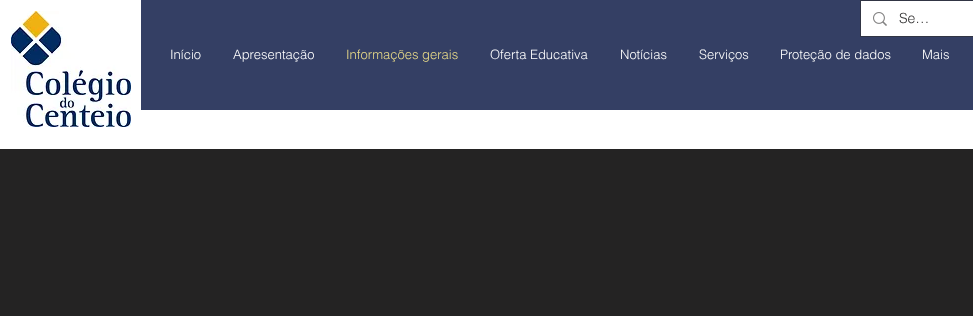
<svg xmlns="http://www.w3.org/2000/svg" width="973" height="316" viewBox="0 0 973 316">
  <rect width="100%" height="100%" fill="rgb(255,255,255)"/>
  <image x="11" y="11" width="120" height="116" href="pic1.png"/>
  <rect x="141" y="0" width="832" height="110" fill="rgb(52,63,100)"/>
  <rect x="860.5" y="0.5" width="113" height="36" fill="none" stroke="rgb(49,53,68)"/>
  <rect x="861" y="1" width="112" height="35" fill="rgb(255,255,255)"/>
  <image x="873" y="12" width="14" height="14" href="pic2.png"/>
  <text x="899" y="23" font-family="helvetica" font-size="14" font-weight="300" fill="rgb(47,46,46)">Se…</text>
  <g font-family="helvetica" font-size="13" font-weight="300" fill="rgb(255,255,255)">
    <text x="170" y="59">Início</text>
    <text x="233" y="59">Apresentação</text>
  </g>
  <text x="346" y="59" font-family="helvetica" font-size="13" font-weight="300" fill="rgb(233,219,137)">Informações gerais</text>
  <g font-family="helvetica" font-size="13" font-weight="300" fill="rgb(255,255,255)">
    <text x="490" y="59">Oferta Educativa</text>
    <text x="620" y="59">Notícias</text>
    <text x="699" y="59">Serviços</text>
    <text x="780" y="59">Proteção de dados</text>
    <text x="922" y="59">Mais</text>
  </g>
  <rect x="0" y="149" width="973" height="167" fill="rgb(36,35,35)"/>
</svg>
